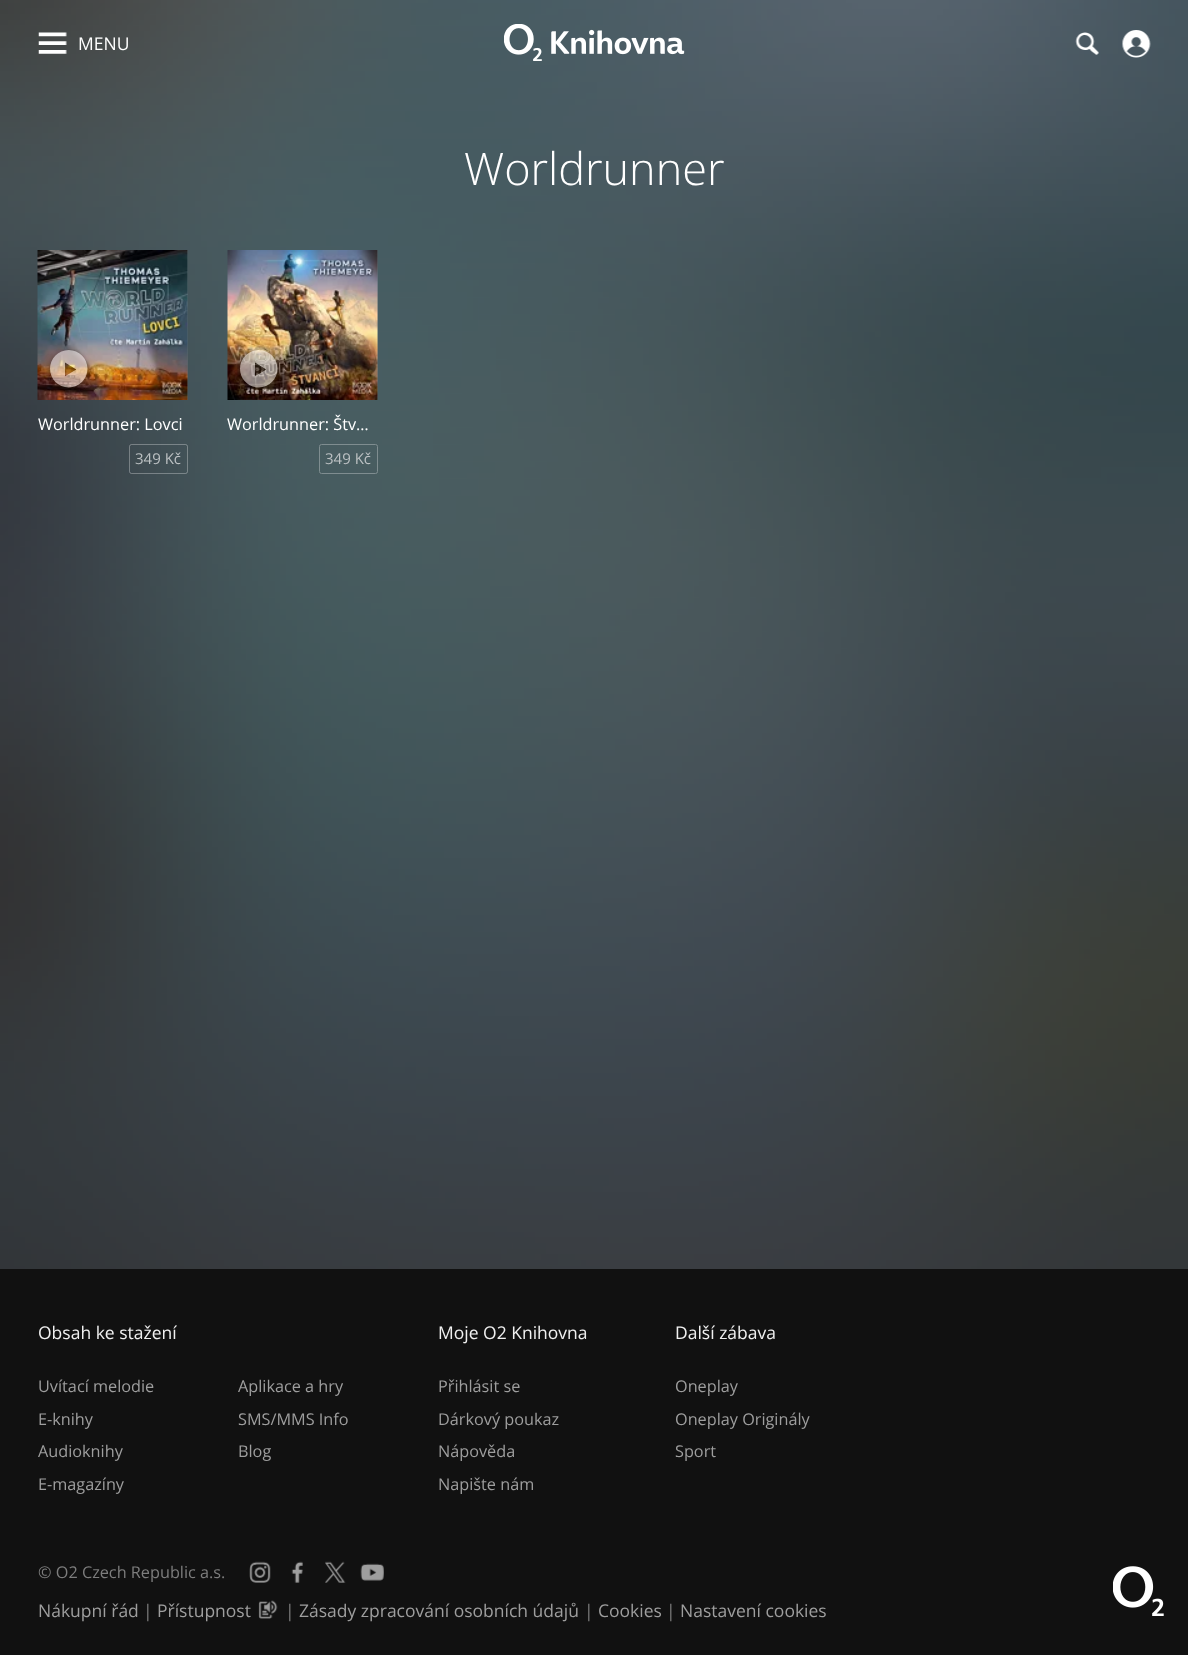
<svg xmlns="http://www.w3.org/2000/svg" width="1188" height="1655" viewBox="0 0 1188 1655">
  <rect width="100%" height="100%" fill="rgb(255,255,255)"/>
  <image x="0" y="0" width="1188" height="1269" href="pic1.png"/>
  <image x="38" y="32" width="29" height="22" href="pic2.png"/>
  <text x="78" y="50" font-family="Open Sans" font-size="17.5" fill="rgb(255,255,255)">MENU</text>
  <image x="504" y="24" width="181" height="37" href="pic3.png"/>
  <image x="1075" y="32" width="24" height="23" href="pic4.png"/>
  <image x="1122" y="30" width="29" height="28" href="pic5.png"/>
  <text x="464" y="185" font-family="Open Sans" font-size="45" font-weight="300" fill="rgb(255,255,255)">Worldrunner</text>
  <rect x="187" y="250" width="1" height="150" fill="rgba(255,255,255,0.1)"/>
  <image x="37" y="250" width="151" height="150" href="pic7.png"/>
  <image x="46" y="349" width="46" height="45" href="pic6.png"/>
  <text x="38" y="430" font-family="Open Sans" font-size="16.25" fill="rgb(255,255,255)">Worldrunner: Lovci</text>
  <rect x="129.5" y="444.5" width="58" height="29" rx="2" fill="none" stroke="rgba(255,255,255,0.3)"/>
  <text x="135" y="464" font-family="Open Sans" font-size="15" fill="rgb(188,193,195)">349 Kč</text>
  <rect x="377" y="250" width="1" height="150" fill="rgba(255,255,255,0.1)"/>
  <image x="227" y="250" width="151" height="150" href="pic9.png"/>
  <image x="237" y="348" width="44" height="46" href="pic8.png"/>
  <text x="227" y="430" font-family="Open Sans" font-size="16.25" fill="rgb(255,255,255)">Worldrunner: Štv…</text>
  <rect x="319.5" y="444.5" width="58" height="29" rx="2" fill="none" stroke="rgb(127,141,144)"/>
  <text x="325" y="464" font-family="Open Sans" font-size="15" fill="rgb(188,193,195)">349 Kč</text>
  <rect x="0" y="1269" width="1188" height="386" fill="rgb(17,17,17)"/>
  <text x="38" y="1339" font-family="Open Sans" font-size="17.5" fill="rgb(240,240,240)">Obsah ke stažení</text>
  <g font-family="Open Sans" font-size="16.25" fill="rgb(158,158,158)">
    <text x="38" y="1392">Uvítací melodie</text>
    <text x="238" y="1392">Aplikace a hry</text>
    <text x="38" y="1425">E-knihy</text>
    <text x="238" y="1425">SMS/MMS Info</text>
    <text x="38" y="1457">Audioknihy</text>
    <text x="238" y="1457">Blog</text>
    <text x="38" y="1490">E-magazíny</text>
  </g>
  <text x="438" y="1339" font-family="Open Sans" font-size="17.5" fill="rgb(240,240,240)">Moje O2 Knihovna</text>
  <g font-family="Open Sans" font-size="16.25" fill="rgb(158,158,158)">
    <text x="438" y="1392">Přihlásit se</text>
    <text>
      <tspan x="438" y="1425">Dárkový poukaz</tspan>
      <tspan x="438" y="1457">Nápověda</tspan>
    </text>
    <text x="438" y="1490">Napište nám</text>
  </g>
  <text x="675" y="1339" font-family="Open Sans" font-size="17.5" fill="rgb(240,240,240)">Další zábava</text>
  <g font-family="Open Sans" font-size="16.25" fill="rgb(158,158,158)">
    <text x="675" y="1392">Oneplay</text>
    <text>
      <tspan x="675" y="1425">Oneplay Originály</tspan>
      <tspan x="675" y="1457">Sport</tspan>
    </text>
  </g>
  <text x="38" y="1578" font-family="Open Sans" font-size="16.25" fill="rgb(125,125,125)">© O2 Czech Republic a.s.</text>
  <image x="249" y="1561" width="22" height="22" href="pic10.png"/>
  <image x="291" y="1561" width="12" height="22" href="pic11.png"/>
  <image x="325" y="1561" width="21" height="22" href="pic12.png"/>
  <image x="360" y="1563" width="24" height="18" href="pic13.png"/>
  <image x="1113" y="1566" width="51" height="50" href="pic14.png"/>
  <text x="38" y="1617" font-family="Open Sans" font-size="17.5" fill="rgb(158,158,158)">Nákupní řád</text>
  <text x="143" y="1617" font-family="Open Sans" font-size="17.5" fill="rgb(125,125,125)">|</text>
  <text x="157" y="1617" font-family="Open Sans" font-size="17.5" fill="rgb(158,158,158)">Přístupnost</text>
  <image x="258" y="1600" width="20" height="19" href="pic15.png"/>
  <text x="285" y="1617" font-family="Open Sans" font-size="17.5" fill="rgb(125,125,125)">|</text>
  <text x="299" y="1617" font-family="Open Sans" font-size="17.5" fill="rgb(158,158,158)">Zásady zpracování osobních údajů</text>
  <text x="584" y="1617" font-family="Open Sans" font-size="17.5" fill="rgb(125,125,125)">|</text>
  <text x="598" y="1617" font-family="Open Sans" font-size="17.5" fill="rgb(158,158,158)">Cookies</text>
  <text x="666" y="1617" font-family="Open Sans" font-size="17.5" fill="rgb(125,125,125)">|</text>
  <text x="680" y="1617" font-family="Open Sans" font-size="17.5" fill="rgb(158,158,158)">Nastavení cookies</text>
</svg>
